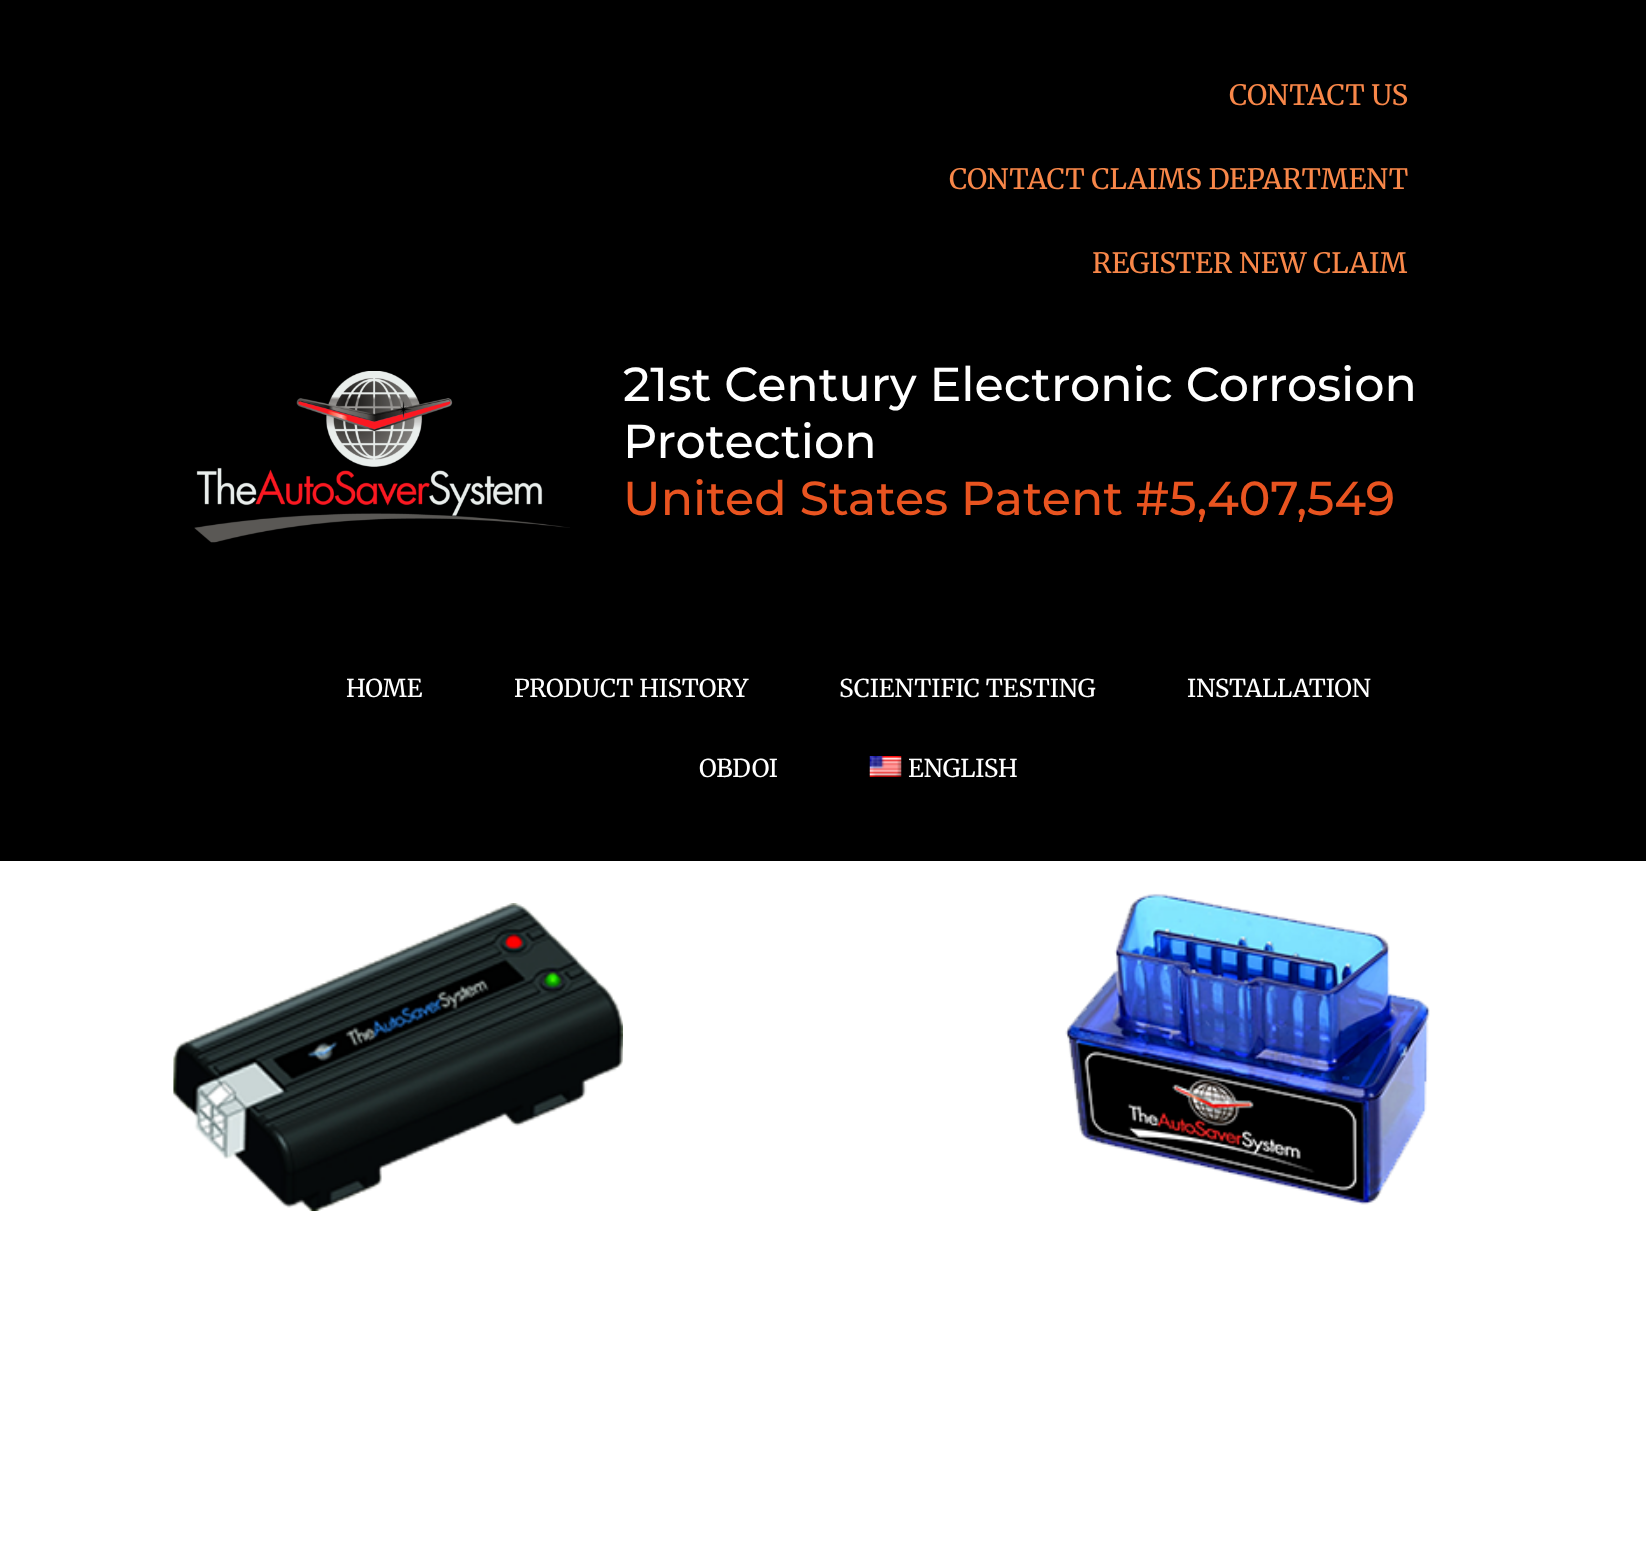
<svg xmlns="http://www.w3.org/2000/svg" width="1646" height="1563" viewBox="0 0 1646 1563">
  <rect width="100%" height="100%" fill="rgb(255,255,255)"/>
  <rect x="0" y="0" width="1646" height="861" fill="rgb(0,0,0)"/>
  <image x="194" y="371" width="376" height="172" href="pic1.png"/>
  <g font-family="Merriweather" font-size="28" fill="rgb(248,135,73)">
    <text x="1229" y="105">CONTACT US</text>
    <text x="949" y="189">CONTACT CLAIMS DEPARTMENT</text>
    <text x="1092" y="273">REGISTER NEW CLAIM</text>
  </g>
  <g font-family="Montserrat" font-size="47.6" font-weight="500" fill="rgb(255,255,255)">
    <text>
      <tspan x="623" y="401">21st Century Electronic Corrosion</tspan>
      <tspan x="623" y="458">Protection</tspan>
    </text>
  </g>
  <text x="623" y="515" font-family="Montserrat" font-size="47.6" font-weight="500" fill="rgb(233,84,32)">United States Patent #5,407,549</text>
  <g font-family="Merriweather" font-size="24.5" fill="rgb(255,255,255)">
    <text x="346" y="697">HOME</text>
    <text x="514" y="697">PRODUCT HISTORY</text>
    <text x="839" y="697">SCIENTIFIC TESTING</text>
    <text x="1187" y="697">INSTALLATION</text>
    <text x="699" y="777">OBDOI</text>
  </g>
  <image x="869" y="756" width="33" height="21" href="pic2.png"/>
  <text x="908" y="777" font-family="Merriweather" font-size="24.5" fill="rgb(255,255,255)">ENGLISH</text>
  <image x="173" y="903" width="450" height="308" href="pic3.png"/>
  <image x="1065" y="893" width="365" height="312" href="pic4.png"/>
</svg>
